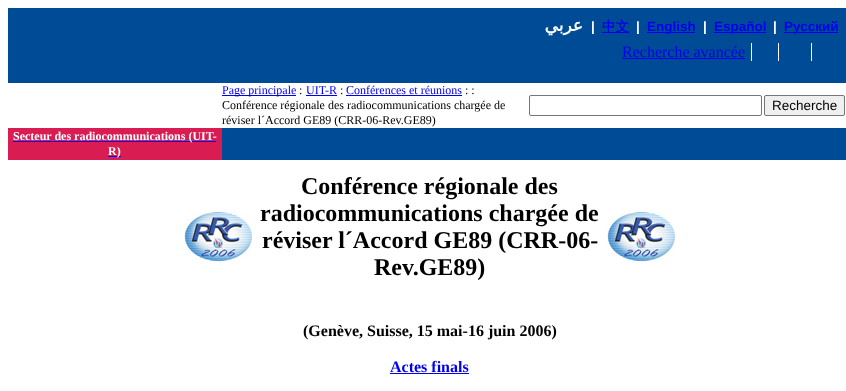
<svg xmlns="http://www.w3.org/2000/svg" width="846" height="391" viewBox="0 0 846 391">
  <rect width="100%" height="100%" fill="rgb(255,255,255)"/>
  <rect x="8" y="8" width="838" height="75" fill="rgb(0,75,150)"/>
  <text x="583" y="31" font-family="DejaVu Sans" font-size="17" font-weight="bold" direction="rtl" fill="rgb(255,255,255)">عربي</text>
  <text x="591" y="31" font-family="Liberation Sans" font-size="13.5" font-weight="bold" fill="rgb(255,255,255)">|</text>
  <rect x="602" y="32" width="27" height="1" fill="rgb(0,0,238)"/>
  <text x="602" y="31" font-family="WenQuanYi Zen Hei" font-size="13.5" font-weight="bold" fill="rgb(0,0,238)">中文</text>
  <text x="636" y="31" font-family="Liberation Sans" font-size="13.5" font-weight="bold" fill="rgb(255,255,255)">|</text>
  <rect x="647" y="32" width="48" height="1" fill="rgb(0,0,238)"/>
  <text x="647" y="31" font-family="Liberation Sans" font-size="13.5" font-weight="bold" fill="rgb(0,0,238)">English</text>
  <text x="703" y="31" font-family="Liberation Sans" font-size="13.5" font-weight="bold" fill="rgb(255,255,255)">|</text>
  <rect x="714" y="32" width="52" height="1" fill="rgb(0,0,238)"/>
  <text x="714" y="31" font-family="Liberation Sans" font-size="13.5" font-weight="bold" fill="rgb(0,0,238)">Español</text>
  <text x="773" y="31" font-family="Liberation Sans" font-size="13.5" font-weight="bold" fill="rgb(255,255,255)">|</text>
  <rect x="784" y="32" width="54" height="1" fill="rgb(0,0,238)"/>
  <text x="784" y="31" font-family="Liberation Sans" font-size="13.5" font-weight="bold" fill="rgb(0,0,238)">Русский</text>
  <rect x="751" y="43" width="1" height="18" fill="rgb(255,255,255)"/>
  <text x="622" y="57" font-family="Liberation Serif" font-size="16" fill="rgb(0,0,238)">Recherche avancée</text>
  <rect x="622" y="58" width="123" height="1" fill="rgb(0,0,238)"/>
  <rect x="778" y="43" width="1" height="18" fill="rgb(255,255,255)"/>
  <rect x="811" y="43" width="1" height="18" fill="rgb(255,255,255)"/>
  <rect x="222" y="95" width="74" height="1" fill="rgb(0,0,238)"/>
  <text x="222" y="94" font-family="Liberation Serif" font-size="12" fill="rgb(0,0,238)">Page principale</text>
  <text x="299" y="94" font-family="Liberation Serif" font-size="12" fill="rgb(0,0,0)">:</text>
  <text x="306" y="94" font-family="Liberation Serif" font-size="12" fill="rgb(0,0,238)">UIT-R</text>
  <rect x="306" y="95" width="31" height="1" fill="rgb(0,0,238)"/>
  <text x="340" y="94" font-family="Liberation Serif" font-size="12" fill="rgb(0,0,0)">:</text>
  <text x="346" y="94" font-family="Liberation Serif" font-size="12" fill="rgb(0,0,238)">Conférences et réunions</text>
  <rect x="346" y="95" width="116" height="1" fill="rgb(0,0,238)"/>
  <g font-family="Liberation Serif" font-size="12" fill="rgb(0,0,0)">
    <text x="465" y="94">: :</text>
    <text>
      <tspan x="222" y="109">Conférence régionale des radiocommunications chargée de</tspan>
      <tspan x="222" y="124">réviser l´Accord GE89 (CRR-06-Rev.GE89)</tspan>
    </text>
  </g>
  <rect x="529.5" y="95.5" width="232" height="20" rx="1.5" fill="none" stroke="rgb(118,118,118)"/>
  <rect x="764.5" y="95.5" width="80" height="20" rx="1.5" fill="rgb(239,239,239)" stroke="rgb(118,118,118)"/>
  <text x="772" y="110" font-family="Liberation Sans" font-size="13.5" fill="rgb(0,0,0)">Recherche</text>
  <rect x="8" y="128" width="214" height="32" fill="rgb(217,29,82)"/>
  <rect x="13" y="141" width="203" height="1" fill="rgb(0,0,238)"/>
  <text x="13" y="140" font-family="Liberation Serif" font-size="12" font-weight="bold" fill="rgb(255,255,255)">Secteur des radiocommunications (UIT-</text>
  <rect x="108" y="156" width="13" height="1" fill="rgb(0,0,238)"/>
  <text x="108" y="155" font-family="Liberation Serif" font-size="12" font-weight="bold" fill="rgb(255,255,255)">R)</text>
  <rect x="222" y="128" width="624" height="32" fill="rgb(0,75,150)"/>
  <image x="184" y="212" width="68" height="50" href="pic1.png"/>
  <g font-family="Liberation Serif" font-size="24" font-weight="bold" fill="rgb(0,0,0)">
    <text x="301" y="194">Conférence régionale des</text>
    <text x="260" y="221">radiocommunications chargée de</text>
    <text x="262" y="248">réviser l´Accord GE89 (CRR-06-</text>
    <text x="374" y="275">Rev.GE89)</text>
  </g>
  <image x="607" y="212" width="68" height="50" href="pic1.png"/>
  <text x="303" y="336" font-family="Liberation Serif" font-size="16" font-weight="bold" fill="rgb(0,0,0)">(Genève, Suisse, 15 mai-16 juin 2006)</text>
  <text x="390" y="372" font-family="Liberation Serif" font-size="16" font-weight="bold" fill="rgb(0,0,238)">Actes finals</text>
  <rect x="390" y="373" width="79" height="1" fill="rgb(0,0,238)"/>
</svg>
